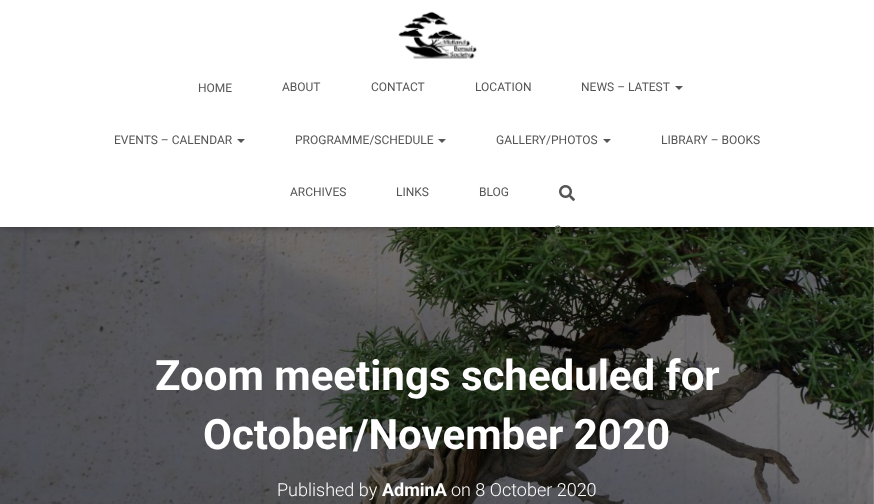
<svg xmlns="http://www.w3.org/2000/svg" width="874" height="504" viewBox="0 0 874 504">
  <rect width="100%" height="100%" fill="rgb(255,255,255)"/>
  <image x="0" y="227" width="874" height="277" href="pic3.png"/>
  <rect x="2" y="6" width="870" height="223" fill="rgba(0,0,0,0.1)" filter="blur(2.5px)"/>
  <rect x="0" y="1" width="874" height="227" fill="rgba(0,0,0,0.12)" filter="blur(5px)"/>
  <rect x="6" y="7" width="862" height="215" fill="rgba(0,0,0,0.42)" filter="blur(5px)"/>
  <rect x="0" y="0" width="874" height="227" fill="rgb(255,255,255)"/>
  <image x="398" y="11" width="79" height="48" href="pic1.png"/>
  <g font-family="Roboto" font-size="12" fill="rgb(85,85,85)">
    <text x="198" y="92">HOME</text>
    <text x="282" y="91">ABOUT</text>
    <text x="371" y="91">CONTACT</text>
    <text x="475" y="91">LOCATION</text>
    <text x="581" y="91">NEWS – LATEST</text>
  </g>
  <path d="M675 86H683L679 90Z" fill="rgb(85,85,85)"/>
  <text x="114" y="144" font-family="Roboto" font-size="12" fill="rgb(85,85,85)">EVENTS – CALENDAR</text>
  <path d="M237 139H245L241 143Z" fill="rgb(85,85,85)"/>
  <text x="295" y="144" font-family="Roboto" font-size="12" fill="rgb(85,85,85)">PROGRAMME/SCHEDULE</text>
  <path d="M438 139H446L442 143Z" fill="rgb(85,85,85)"/>
  <text x="496" y="144" font-family="Roboto" font-size="12" fill="rgb(85,85,85)">GALLERY/PHOTOS</text>
  <path d="M603 139H611L607 143Z" fill="rgb(85,85,85)"/>
  <g font-family="Roboto" font-size="12" fill="rgb(85,85,85)">
    <text x="661" y="144">LIBRARY – BOOKS</text>
    <text x="290" y="196">ARCHIVES</text>
    <text x="396" y="196">LINKS</text>
    <text x="479" y="196">BLOG</text>
  </g>
  <image x="559" y="185" width="16" height="16" href="pic2.png"/>
  <text x="554" y="233" font-family="Roboto" font-size="14" fill="rgb(90,100,81)">a</text>
  <text x="554" y="293" font-family="Roboto" font-size="14" fill="rgb(36,40,33)">h</text>
  <g font-family="Roboto" font-size="42" font-weight="bold" fill="rgb(255,255,255)">
    <text x="155" y="390">Zoom meetings scheduled for</text>
    <text x="203" y="449">October/November 2020</text>
  </g>
  <text x="277" y="496" font-family="Roboto" font-size="18" font-weight="300" fill="rgb(255,255,255)">Published by</text>
  <text x="382" y="496" font-family="Roboto" font-size="18" font-weight="bold" fill="rgb(255,255,255)">AdminA</text>
  <text x="451" y="496" font-family="Roboto" font-size="18" font-weight="300" fill="rgb(255,255,255)">on 8 October 2020</text>
</svg>
